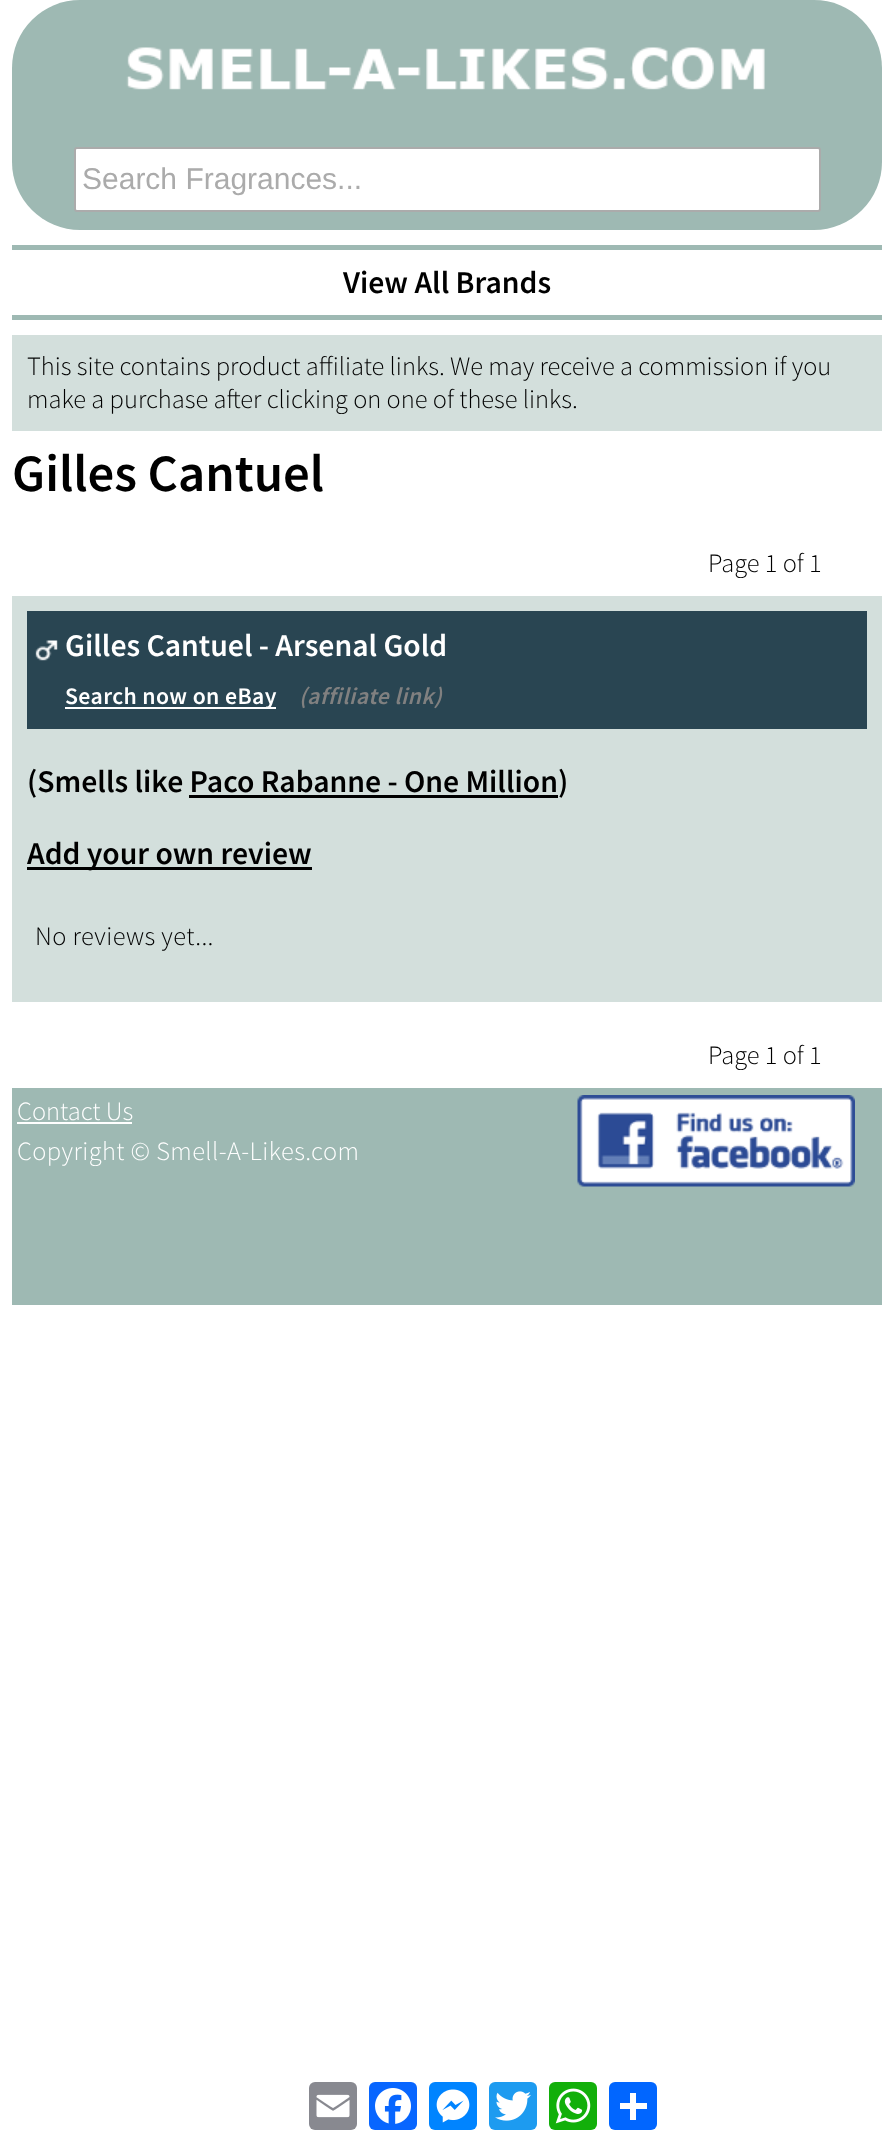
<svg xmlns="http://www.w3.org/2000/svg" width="893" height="2142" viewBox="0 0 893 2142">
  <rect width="100%" height="100%" fill="rgb(255,255,255)"/>
  <rect x="12" y="0" width="870" height="230" rx="68" fill="rgb(158,185,179)"/>
  <image x="126" y="47" width="639" height="43" href="pic1.png"/>
  <rect x="75" y="148" width="745" height="63" rx="2" fill="rgb(255,255,255)" stroke="rgb(171,171,171)" stroke-width="2"/>
  <text x="82" y="189" font-family="Liberation Sans" font-size="30" fill="rgb(171,171,171)">Search Fragrances...</text>
  <rect x="12" y="245" width="870" height="5" fill="rgb(158,185,179)"/>
  <rect x="12" y="315" width="870" height="5" fill="rgb(158,185,179)"/>
  <text x="343" y="293" font-family="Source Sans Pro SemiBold" font-size="31.7" font-weight="600" fill="rgb(0,0,0)">View All Brands</text>
  <rect x="12" y="335" width="870" height="96" fill="rgb(211,223,220)"/>
  <g font-family="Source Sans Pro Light" font-size="26.4" font-weight="300" fill="rgb(0,0,0)">
    <text>
      <tspan x="27" y="375">This site contains product affiliate links. We may receive a commission if you</tspan>
      <tspan x="27" y="408">make a purchase after clicking on one of these links.</tspan>
    </text>
  </g>
  <text x="12" y="491" font-family="Source Sans Pro SemiBold" font-size="52.75" font-weight="600" fill="rgb(0,0,0)">Gilles Cantuel</text>
  <text x="708" y="572" font-family="Source Sans Pro Light" font-size="26.4" font-weight="300" fill="rgb(0,0,0)">Page 1 of 1</text>
  <rect x="12" y="596" width="870" height="406" fill="rgb(211,223,220)"/>
  <rect x="27" y="611" width="840" height="118" fill="rgb(41,69,82)"/>
  <image x="35" y="640" width="23" height="21" href="pic2.png"/>
  <text x="65" y="656" font-family="Source Sans Pro SemiBold" font-size="31.7" font-weight="600" fill="rgb(255,255,255)">Gilles Cantuel - Arsenal Gold</text>
  <rect x="65" y="707" width="211" height="2" fill="rgb(255,255,255)"/>
  <text x="65" y="704" font-family="Source Sans Pro SemiBold" font-size="23.75" font-weight="600" letter-spacing="0.4" fill="rgb(255,255,255)">Search now on eBay</text>
  <text x="299" y="704" font-family="Source Sans Pro SemiBold" font-size="23.75" font-weight="600" font-style="italic" letter-spacing="0.4" fill="rgb(128,128,128)">(affiliate link)</text>
  <text x="27" y="792" font-family="Source Sans Pro SemiBold" font-size="31.7" font-weight="600" fill="rgb(0,0,0)">(Smells like Paco Rabanne - One Million)</text>
  <rect x="189" y="795" width="369" height="3" fill="rgb(0,0,0)"/>
  <rect x="27" y="867" width="285" height="3" fill="rgb(0,0,0)"/>
  <text x="27" y="864" font-family="Source Sans Pro SemiBold" font-size="31.7" font-weight="600" fill="rgb(0,0,0)">Add your own review</text>
  <text x="35" y="945" font-family="Source Sans Pro Light" font-size="26.4" font-weight="300" letter-spacing="0.4" fill="rgb(0,0,0)">No reviews yet...</text>
  <text x="708" y="1064" font-family="Source Sans Pro Light" font-size="26.4" font-weight="300" fill="rgb(0,0,0)">Page 1 of 1</text>
  <rect x="12" y="1088" width="870" height="217" fill="rgb(158,185,179)"/>
  <text x="17" y="1120" font-family="Source Sans Pro Light" font-size="26.4" font-weight="300" fill="rgb(255,255,255)">Contact Us</text>
  <rect x="17" y="1122" width="115" height="2" fill="rgb(255,255,255)"/>
  <image x="577" y="1095" width="278" height="92" href="pic3.png"/>
  <text x="17" y="1160" font-family="Source Sans Pro Light" font-size="26.4" font-weight="300" letter-spacing="0.4" fill="rgb(255,255,255)">Copyright © Smell-A-Likes.com</text>
  <rect x="309" y="2082" width="48" height="48" rx="6" fill="rgb(136,137,144)"/>
  <image x="316" y="2094" width="34" height="24" href="pic4.png"/>
  <rect x="369" y="2082" width="48" height="48" rx="6" fill="rgb(8,102,255)"/>
  <image x="375" y="2088" width="36" height="36" href="pic5.png"/>
  <rect x="429" y="2082" width="48" height="48" rx="6" fill="rgb(0,132,255)"/>
  <image x="436" y="2089" width="34" height="34" href="pic6.png"/>
  <rect x="489" y="2082" width="48" height="48" rx="6" fill="rgb(29,155,240)"/>
  <image x="495" y="2091" width="36" height="30" href="pic7.png"/>
  <rect x="549" y="2082" width="48" height="48" rx="6" fill="rgb(18,175,10)"/>
  <image x="555" y="2088" width="36" height="36" href="pic8.png"/>
  <rect x="609" y="2082" width="48" height="48" rx="6" fill="rgb(1,102,255)"/>
  <rect x="630" y="2093" width="6" height="27" fill="rgb(255,255,255)"/>
  <rect x="620" y="2103" width="27" height="6" fill="rgb(255,255,255)"/>
</svg>
